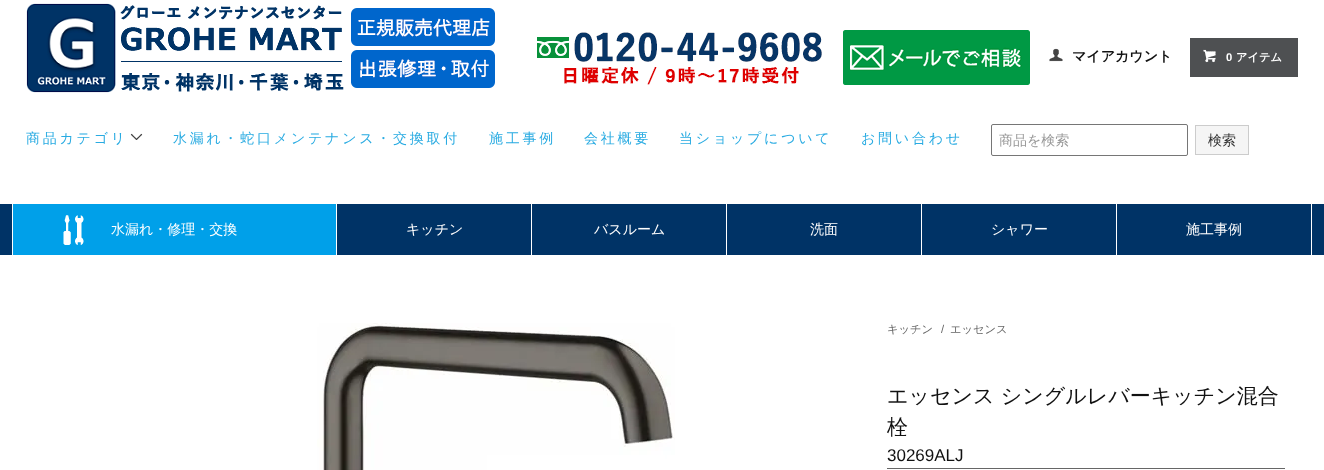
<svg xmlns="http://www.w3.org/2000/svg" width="1324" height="470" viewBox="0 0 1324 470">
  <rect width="100%" height="100%" fill="rgb(255,255,255)"/>
  <image x="26" y="3" width="469" height="90" href="pic1.png"/>
  <image x="537" y="32" width="285" height="53" href="pic2.png"/>
  <image x="843" y="30" width="187" height="55" href="pic3.png"/>
  <image x="1049" y="48" width="14" height="14" href="pic4.png"/>
  <text x="1072" y="61" font-family="WenQuanYi Zen Hei" font-size="14" font-weight="bold" fill="rgb(17,17,17)">マイアカウント</text>
  <rect x="1190" y="38" width="108" height="39" fill="rgb(78,80,82)"/>
  <image x="1203" y="49" width="13" height="14" href="pic5.png"/>
  <text x="1226" y="61" font-family="Liberation Sans" font-size="11.25" font-weight="bold" fill="rgb(255,255,255)">0</text>
  <text x="1236" y="61" font-family="WenQuanYi Zen Hei" font-size="11.25" font-weight="bold" fill="rgb(255,255,255)">アイテム</text>
  <text x="26" y="143" font-family="WenQuanYi Zen Hei" font-size="14" font-weight="500" letter-spacing="2.75" fill="rgb(41,171,226)">商品カテゴリ</text>
  <image x="130" y="133" width="13" height="7" href="pic6.png"/>
  <g font-family="WenQuanYi Zen Hei" font-size="14" font-weight="500" letter-spacing="2.75" fill="rgb(41,171,226)">
    <text x="173" y="143">水漏れ・蛇口メンテナンス・交換取付</text>
    <text x="489" y="143">施工事例</text>
    <text x="584" y="143">会社概要</text>
    <text x="679" y="143">当ショップについて</text>
    <text x="861" y="143">お問い合わせ</text>
  </g>
  <rect x="991.5" y="124.5" width="196" height="31" rx="1.5" fill="none" stroke="rgb(118,118,118)"/>
  <text x="999" y="145" font-family="WenQuanYi Zen Hei" font-size="14" font-weight="500" fill="rgb(153,153,153)">商品を検索</text>
  <rect x="1195.5" y="125.5" width="53" height="29" fill="rgb(245,245,245)" stroke="rgb(204,204,204)"/>
  <text x="1208" y="145" font-family="WenQuanYi Zen Hei" font-size="14" font-weight="500" fill="rgb(51,51,51)">検索</text>
  <rect x="0" y="204" width="1324" height="51" fill="rgb(0,51,102)"/>
  <rect x="13" y="204" width="323" height="51" fill="rgb(0,160,233)"/>
  <image x="63" y="215" width="21" height="30" href="pic7.png"/>
  <rect x="12" y="204" width="1" height="51" fill="rgb(255,255,255)"/>
  <text x="111" y="234" font-family="WenQuanYi Zen Hei" font-size="14" font-weight="500" fill="rgb(255,255,255)">水漏れ・修理・交換</text>
  <rect x="336" y="204" width="1" height="51" fill="rgb(255,255,255)"/>
  <text x="406" y="234" font-family="WenQuanYi Zen Hei" font-size="14" font-weight="500" fill="rgb(255,255,255)">キッチン</text>
  <rect x="531" y="204" width="1" height="51" fill="rgb(255,255,255)"/>
  <text x="594" y="234" font-family="WenQuanYi Zen Hei" font-size="14" font-weight="500" fill="rgb(255,255,255)">バスルーム</text>
  <rect x="726" y="204" width="1" height="51" fill="rgb(255,255,255)"/>
  <text x="810" y="234" font-family="WenQuanYi Zen Hei" font-size="14" font-weight="500" fill="rgb(255,255,255)">洗面</text>
  <rect x="921" y="204" width="1" height="51" fill="rgb(255,255,255)"/>
  <text x="991" y="234" font-family="WenQuanYi Zen Hei" font-size="14" font-weight="500" fill="rgb(255,255,255)">シャワー</text>
  <rect x="1311" y="204" width="1" height="51" fill="rgb(255,255,255)"/>
  <rect x="1116" y="204" width="1" height="51" fill="rgb(255,255,255)"/>
  <text x="1186" y="234" font-family="WenQuanYi Zen Hei" font-size="14" font-weight="500" fill="rgb(255,255,255)">施工事例</text>
  <image x="317" y="323" width="358" height="147" href="pic8.png"/>
  <text x="887" y="333" font-family="WenQuanYi Zen Hei" font-size="11.25" font-weight="500" fill="rgb(102,102,102)">キッチン</text>
  <text x="941" y="333" font-family="Liberation Sans" font-size="11.25" fill="rgb(102,102,102)">/</text>
  <text x="950" y="333" font-family="WenQuanYi Zen Hei" font-size="11.25" font-weight="500" fill="rgb(102,102,102)">エッセンス</text>
  <rect x="887" y="468" width="398" height="1" fill="rgb(102,102,102)"/>
  <g font-family="WenQuanYi Zen Hei" font-size="21" font-weight="500" fill="rgb(17,17,17)">
    <text>
      <tspan x="887" y="403">エッセンス シングルレバーキッチン混合</tspan>
      <tspan x="887" y="434">栓</tspan>
    </text>
  </g>
  <text x="887" y="461" font-family="Liberation Sans" font-size="17" fill="rgb(17,17,17)">30269ALJ</text>
</svg>
